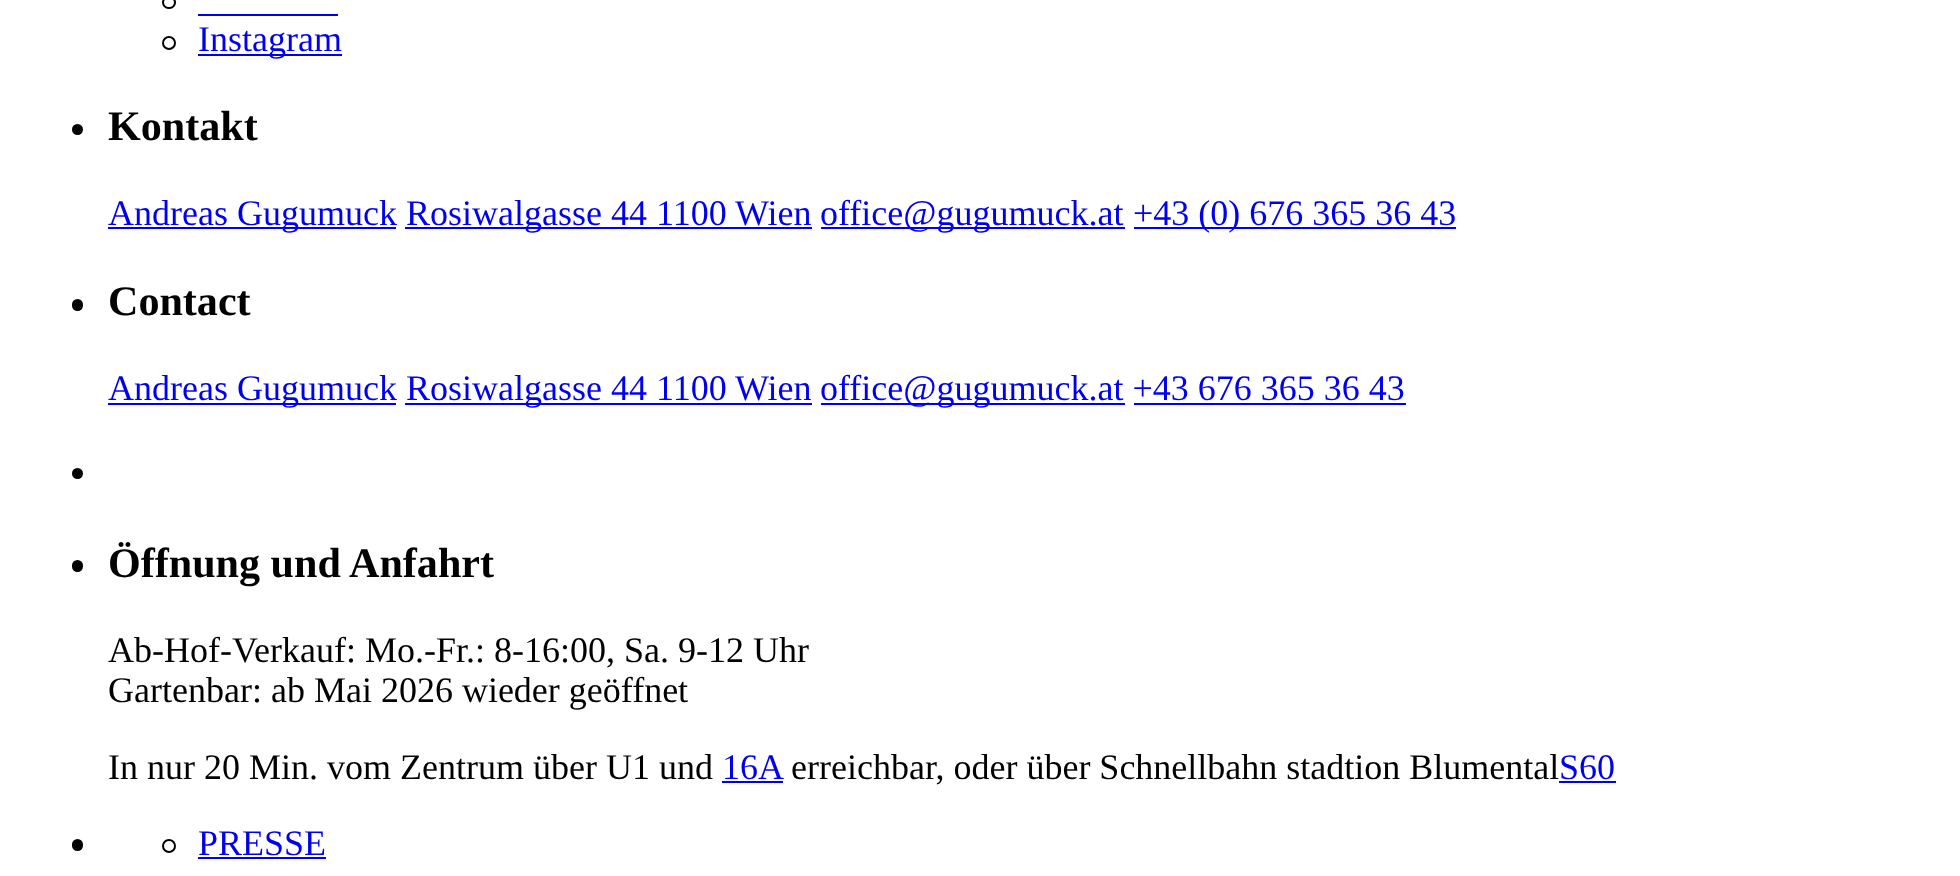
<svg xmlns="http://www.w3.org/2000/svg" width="1960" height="876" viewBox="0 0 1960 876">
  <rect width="100%" height="100%" fill="rgb(255,255,255)"/>
  <rect x="163" y="-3" width="12" height="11" rx="5.5" fill="none" stroke="rgb(0,0,0)" stroke-width="2"/>
  <rect x="198" y="14" width="140" height="2" fill="rgb(0,0,238)"/>
  <circle cx="169" cy="43" r="6" fill="none" stroke="rgb(0,0,0)" stroke-width="2"/>
  <rect x="198" y="54" width="144" height="2" fill="rgb(0,0,238)"/>
  <text x="198" y="51" font-family="Liberation Serif" font-size="36" fill="rgb(0,0,238)">Instagram</text>
  <circle cx="77.5" cy="129.5" r="5.5" fill="rgb(0,0,0)"/>
  <text x="108" y="140" font-family="Liberation Serif" font-size="42.1" font-weight="bold" fill="rgb(0,0,0)">Kontakt</text>
  <rect x="108" y="227" width="288" height="2" fill="rgb(0,0,238)"/>
  <text x="108" y="225" font-family="Liberation Serif" font-size="36" fill="rgb(0,0,238)">Andreas Gugumuck</text>
  <rect x="405" y="227" width="407" height="2" fill="rgb(0,0,238)"/>
  <text x="406" y="225" font-family="Liberation Serif" font-size="36" fill="rgb(0,0,238)">Rosiwalgasse 44 1100 Wien</text>
  <rect x="821" y="227" width="304" height="2" fill="rgb(0,0,238)"/>
  <text x="820" y="225" font-family="Liberation Serif" font-size="36" fill="rgb(0,0,238)">office@gugumuck.at</text>
  <rect x="1134" y="227" width="322" height="2" fill="rgb(0,0,238)"/>
  <text x="1133" y="225" font-family="Liberation Serif" font-size="36" fill="rgb(0,0,238)">+43 (0) 676 365 36 43</text>
  <rect x="72" y="299" width="11" height="12" rx="5.5" fill="rgb(0,0,0)"/>
  <text x="108" y="315" font-family="Liberation Serif" font-size="42.1" font-weight="bold" fill="rgb(0,0,0)">Contact</text>
  <rect x="108" y="403" width="288" height="2" fill="rgb(0,0,238)"/>
  <text x="108" y="400" font-family="Liberation Serif" font-size="36" fill="rgb(0,0,238)">Andreas Gugumuck</text>
  <rect x="405" y="403" width="407" height="2" fill="rgb(0,0,238)"/>
  <text x="406" y="400" font-family="Liberation Serif" font-size="36" fill="rgb(0,0,238)">Rosiwalgasse 44 1100 Wien</text>
  <rect x="821" y="403" width="304" height="2" fill="rgb(0,0,238)"/>
  <text x="820" y="400" font-family="Liberation Serif" font-size="36" fill="rgb(0,0,238)">office@gugumuck.at +43 676 365 36 43</text>
  <rect x="1134" y="403" width="272" height="2" fill="rgb(0,0,238)"/>
  <circle cx="77.5" cy="473.5" r="5.5" fill="rgb(0,0,0)"/>
  <rect x="72" y="560" width="11" height="12" rx="5.5" fill="rgb(0,0,0)"/>
  <text x="108" y="577" font-family="Liberation Serif" font-size="42.1" font-weight="bold" fill="rgb(0,0,0)">Öffnung und Anfahrt</text>
  <g font-family="Liberation Serif" font-size="36" fill="rgb(0,0,0)">
    <text>
      <tspan x="108" y="662">Ab-Hof-Verkauf: Mo.-Fr.: 8-16:00, Sa. 9-12 Uhr</tspan>
      <tspan x="108" y="702">Gartenbar: ab Mai 2026 wieder geöffnet</tspan>
    </text>
    <text x="108" y="779">In nur 20 Min. vom Zentrum über U1 und</text>
  </g>
  <text x="722" y="779" font-family="Liberation Serif" font-size="36" fill="rgb(0,0,238)">16A</text>
  <rect x="722" y="781" width="61" height="2" fill="rgb(0,0,238)"/>
  <text x="791" y="779" font-family="Liberation Serif" font-size="36" fill="rgb(0,0,0)">erreichbar, oder über Schnellbahn stadtion Blumental</text>
  <text x="1559" y="779" font-family="Liberation Serif" font-size="36" fill="rgb(0,0,238)">S60</text>
  <rect x="1559" y="781" width="57" height="2" fill="rgb(0,0,238)"/>
  <rect x="72" y="839" width="11" height="12" rx="5.5" fill="rgb(0,0,0)"/>
  <circle cx="169" cy="846" r="6" fill="none" stroke="rgb(0,0,0)" stroke-width="2"/>
  <text x="198" y="855" font-family="Liberation Serif" font-size="36" fill="rgb(0,0,238)">PRESSE</text>
  <rect x="198" y="857" width="128" height="2" fill="rgb(0,0,238)"/>
</svg>
